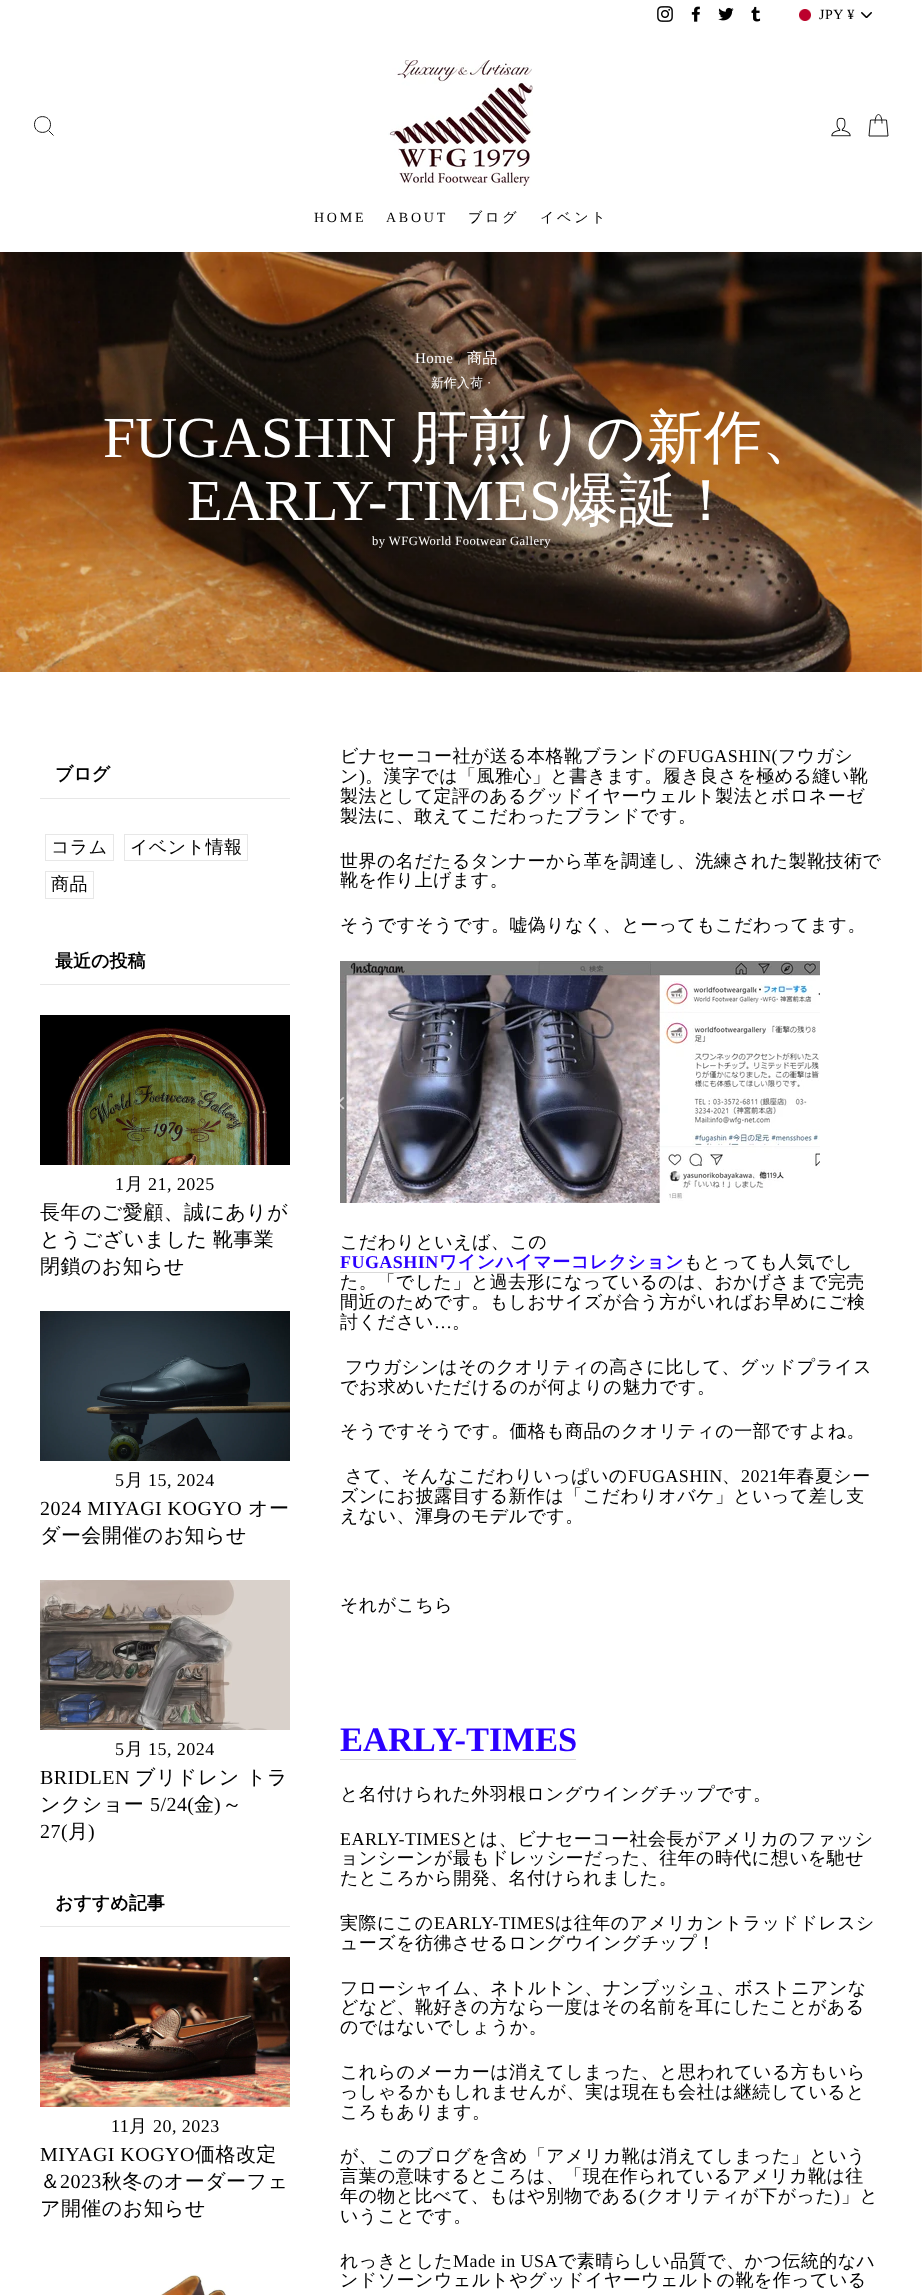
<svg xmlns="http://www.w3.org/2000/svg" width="922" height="2295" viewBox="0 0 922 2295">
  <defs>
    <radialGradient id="g1" gradientUnits="userSpaceOnUse" cx="0" cy="0" r="1" gradientTransform="matrix(878 0 0 264 461 462)"><stop offset="0" stop-color="rgb(0,0,0)" stop-opacity="0.2"/><stop offset="0.6" stop-color="rgb(0,0,0)" stop-opacity="0"/></radialGradient>
  </defs>
  <rect width="100%" height="100%" fill="rgb(255,255,255)"/>
  <image x="657" y="6" width="16" height="16" href="pic1.png"/>
  <image x="691" y="6" width="9" height="16" href="pic2.png"/>
  <image x="718" y="7" width="16" height="14" href="pic3.png"/>
  <image x="751" y="6" width="10" height="16" href="pic4.png"/>
  <image x="861" y="12" width="11" height="6" href="pic5.png"/>
  <image x="799" y="9" width="12" height="12" href="pic6.png"/>
  <text x="819" y="19" font-family="Liberation Serif" font-size="14" letter-spacing="0.5" fill="rgb(0,0,0)">JPY ¥</text>
  <path d="M50.5 124.5C50.5 135 34.5 135 34.5 124.5C34.5 114 50.5 114 50.5 124.5ZM53.5 135.5L48.5 130.5" fill="none" stroke="rgb(0,0,0)" stroke-width="0.9"/>
  <image x="388" y="60" width="145" height="128" href="pic7.png"/>
  <image x="831" y="117" width="20" height="20" href="pic8.png"/>
  <path d="M875 123.5C875 111.5 882 111.5 882 123.5M870.5 120H886.5L888 136H869Z" fill="none" stroke="rgb(0,0,0)" stroke-width="0.9"/>
  <g font-family="Liberation Serif" font-size="14" letter-spacing="2.75" fill="rgb(0,0,0)">
    <text x="314" y="222">HOME</text>
    <text x="386" y="222">ABOUT</text>
  </g>
  <g font-family="WenQuanYi Zen Hei" font-size="14" font-weight="500" letter-spacing="2.75" fill="rgb(0,0,0)">
    <text x="468" y="222">ブログ</text>
    <text x="540" y="222">イベント</text>
  </g>
  <image x="0" y="252" width="922" height="420" href="pic9.png"/>
  <rect x="0" y="252" width="922" height="420" fill="rgba(0,0,0,0.1)"/>
  <rect x="0" y="321" width="922" height="280" fill="url(#g1)"/>
  <text x="415" y="363" font-family="Liberation Serif" font-size="15" letter-spacing="0.45" fill="rgb(255,255,255)">Home</text>
  <text x="458" y="363" font-family="Liberation Serif" font-size="15" letter-spacing="0.45" fill="rgb(0,0,0)">/</text>
  <text x="467" y="363" font-family="WenQuanYi Zen Hei" font-size="15" font-weight="500" letter-spacing="0.45" fill="rgb(255,255,255)">商品</text>
  <text x="431" y="387" font-family="WenQuanYi Zen Hei" font-size="12.6" font-weight="500" letter-spacing="0.45" fill="rgb(255,255,255)">新作入荷</text>
  <text x="487" y="387" font-family="Liberation Serif" font-size="12.6" letter-spacing="0.45" fill="rgb(255,255,255)">·</text>
  <text x="103" y="457" font-family="Liberation Serif" font-size="58" fill="rgb(255,255,255)">FUGASHIN</text>
  <text x="411" y="457" font-family="WenQuanYi Zen Hei" font-size="58" font-weight="500" fill="rgb(255,255,255)">肝煎りの新作、</text>
  <text x="187" y="520" font-family="Liberation Serif" font-size="58" fill="rgb(255,255,255)">EARLY-TIMES</text>
  <text x="561" y="520" font-family="WenQuanYi Zen Hei" font-size="58" font-weight="500" fill="rgb(255,255,255)">爆誕！</text>
  <text x="372" y="545" font-family="Liberation Serif" font-size="12.6" letter-spacing="0.45" fill="rgb(255,255,255)">by WFGWorld Footwear Gallery</text>
  <rect x="40" y="798" width="250" height="1" fill="rgb(231,231,231)"/>
  <text x="55" y="780" font-family="WenQuanYi Zen Hei" font-size="18" font-weight="bold" fill="rgb(0,0,0)">ブログ</text>
  <rect x="45.5" y="834.5" width="68" height="26" fill="none" stroke="rgb(231,231,231)"/>
  <text x="51" y="853" font-family="WenQuanYi Zen Hei" font-size="18" font-weight="500" letter-spacing="0.45" fill="rgb(0,0,0)">コラム</text>
  <rect x="124.5" y="834.5" width="123" height="26" fill="none" stroke="rgb(231,231,231)"/>
  <text x="130" y="853" font-family="WenQuanYi Zen Hei" font-size="18" font-weight="500" letter-spacing="0.45" fill="rgb(0,0,0)">イベント情報</text>
  <rect x="45.5" y="871.5" width="48" height="27" fill="none" stroke="rgb(231,231,231)"/>
  <text x="51" y="890" font-family="WenQuanYi Zen Hei" font-size="18" font-weight="500" letter-spacing="0.45" fill="rgb(0,0,0)">商品</text>
  <rect x="40" y="984" width="250" height="1" fill="rgb(231,231,231)"/>
  <text x="55" y="967" font-family="WenQuanYi Zen Hei" font-size="18" font-weight="bold" fill="rgb(0,0,0)">最近の投稿</text>
  <image x="40" y="1015" width="250" height="150" href="pic10.png"/>
  <text x="115" y="1190" font-family="Liberation Serif" font-size="18" letter-spacing="0.45" fill="rgb(0,0,0)">1</text>
  <text x="125" y="1190" font-family="WenQuanYi Zen Hei" font-size="18" font-weight="500" letter-spacing="0.45" fill="rgb(0,0,0)">月</text>
  <text x="148" y="1190" font-family="Liberation Serif" font-size="18" letter-spacing="0.45" fill="rgb(0,0,0)">21, 2025</text>
  <g font-family="WenQuanYi Zen Hei" font-size="20" font-weight="500" letter-spacing="0.45" fill="rgb(0,0,0)">
    <text>
      <tspan x="40" y="1219">長年のご愛顧、誠にありが</tspan>
      <tspan x="40" y="1246" word-spacing="-1">とうございました 靴事業</tspan>
      <tspan x="40" y="1273">閉鎖のお知らせ</tspan>
    </text>
  </g>
  <image x="40" y="1311" width="250" height="150" href="pic11.png"/>
  <text x="115" y="1486" font-family="Liberation Serif" font-size="18" letter-spacing="0.45" fill="rgb(0,0,0)">5</text>
  <text x="125" y="1486" font-family="WenQuanYi Zen Hei" font-size="18" font-weight="500" letter-spacing="0.45" fill="rgb(0,0,0)">月</text>
  <text x="148" y="1486" font-family="Liberation Serif" font-size="18" letter-spacing="0.45" fill="rgb(0,0,0)">15, 2024</text>
  <text x="40" y="1515" font-family="Liberation Serif" font-size="20" letter-spacing="0.45" fill="rgb(0,0,0)">2024 MIYAGI KOGYO</text>
  <g font-family="WenQuanYi Zen Hei" font-size="20" font-weight="500" letter-spacing="0.45" fill="rgb(0,0,0)">
    <text x="248" y="1515">オー</text>
    <text x="40" y="1542">ダー会開催のお知らせ</text>
  </g>
  <image x="40" y="1580" width="250" height="150" href="pic12.png"/>
  <text x="115" y="1755" font-family="Liberation Serif" font-size="18" letter-spacing="0.45" fill="rgb(0,0,0)">5</text>
  <text x="125" y="1755" font-family="WenQuanYi Zen Hei" font-size="18" font-weight="500" letter-spacing="0.45" fill="rgb(0,0,0)">月</text>
  <text x="148" y="1755" font-family="Liberation Serif" font-size="18" letter-spacing="0.45" fill="rgb(0,0,0)">15, 2024</text>
  <text x="40" y="1784" font-family="Liberation Serif" font-size="20" letter-spacing="0.45" fill="rgb(0,0,0)">BRIDLEN</text>
  <g font-family="WenQuanYi Zen Hei" font-size="20" font-weight="500" letter-spacing="0.45" fill="rgb(0,0,0)">
    <text x="135" y="1784">ブリドレン トラ</text>
    <text x="40" y="1811">ンクショー</text>
  </g>
  <text x="150" y="1811" font-family="Liberation Serif" font-size="20" letter-spacing="0.45" fill="rgb(0,0,0)">5/24(</text>
  <text x="194" y="1811" font-family="WenQuanYi Zen Hei" font-size="20" font-weight="500" letter-spacing="0.45" fill="rgb(0,0,0)">金</text>
  <text x="214" y="1811" font-family="Liberation Serif" font-size="20" letter-spacing="0.45" fill="rgb(0,0,0)">)</text>
  <text x="222" y="1811" font-family="WenQuanYi Zen Hei" font-size="20" font-weight="500" letter-spacing="0.45" fill="rgb(0,0,0)">～</text>
  <text x="40" y="1838" font-family="Liberation Serif" font-size="20" letter-spacing="0.45" fill="rgb(0,0,0)">27(</text>
  <text x="68" y="1838" font-family="WenQuanYi Zen Hei" font-size="20" font-weight="500" letter-spacing="0.45" fill="rgb(0,0,0)">月</text>
  <text x="88" y="1838" font-family="Liberation Serif" font-size="20" letter-spacing="0.45" fill="rgb(0,0,0)">)</text>
  <rect x="40" y="1926" width="250" height="1" fill="rgb(231,231,231)"/>
  <text x="55" y="1909" font-family="WenQuanYi Zen Hei" font-size="18" font-weight="bold" fill="rgb(0,0,0)">おすすめ記事</text>
  <image x="40" y="1957" width="250" height="150" href="pic13.png"/>
  <text x="111" y="2132" font-family="Liberation Serif" font-size="18" letter-spacing="0.45" fill="rgb(0,0,0)">11</text>
  <text x="129" y="2132" font-family="WenQuanYi Zen Hei" font-size="18" font-weight="500" letter-spacing="0.45" fill="rgb(0,0,0)">月</text>
  <text x="153" y="2132" font-family="Liberation Serif" font-size="18" letter-spacing="0.45" fill="rgb(0,0,0)">20, 2023</text>
  <text x="40" y="2161" font-family="Liberation Serif" font-size="20" letter-spacing="0.45" fill="rgb(0,0,0)">MIYAGI KOGYO</text>
  <g font-family="WenQuanYi Zen Hei" font-size="20" font-weight="500" letter-spacing="0.45" fill="rgb(0,0,0)">
    <text x="195" y="2161">価格改定</text>
    <text x="40" y="2188">＆</text>
  </g>
  <text x="60" y="2188" font-family="Liberation Serif" font-size="20" letter-spacing="0.45" fill="rgb(0,0,0)">2023</text>
  <g font-family="WenQuanYi Zen Hei" font-size="20" font-weight="500" letter-spacing="0.45" fill="rgb(0,0,0)">
    <text x="102" y="2188">秋冬のオーダーフェ</text>
    <text x="40" y="2215">ア開催のお知らせ</text>
  </g>
  <image x="160" y="2274" width="66" height="21" href="pic14.png"/>
  <text x="340" y="762" font-family="WenQuanYi Zen Hei" font-size="18" font-weight="500" letter-spacing="0.45" fill="rgb(0,0,0)">ビナセーコー社が送る本格靴ブランドの</text>
  <text x="677" y="762" font-family="Liberation Serif" font-size="18" letter-spacing="0.45" fill="rgb(0,0,0)">FUGASHIN(</text>
  <g font-family="WenQuanYi Zen Hei" font-size="18" font-weight="500" letter-spacing="0.45" fill="rgb(0,0,0)">
    <text x="778" y="762">フウガシ</text>
    <text x="340" y="782">ン</text>
  </g>
  <text x="359" y="782" font-family="Liberation Serif" font-size="18" letter-spacing="0.45" fill="rgb(0,0,0)">)</text>
  <g font-family="WenQuanYi Zen Hei" font-size="18" font-weight="500" letter-spacing="0.45" fill="rgb(0,0,0)">
    <text x="365" y="782">。漢字では「風雅心」と書きます。履き良さを極める縫い靴</text>
    <text>
      <tspan x="340" y="802">製法として定評のあるグッドイヤーウェルト製法とボロネーゼ</tspan>
      <tspan x="340" y="822">製法に、敢えてこだわったブランドです。</tspan>
    </text>
    <text>
      <tspan x="340" y="867">世界の名だたるタンナーから革を調達し、洗練された製靴技術で</tspan>
      <tspan x="340" y="886">靴を作り上げます。</tspan>
    </text>
    <text x="340" y="931">そうですそうです。嘘偽りなく、とーってもこだわってます。</text>
  </g>
  <image x="340" y="961" width="480" height="242" href="pic15.png"/>
  <g font-family="WenQuanYi Zen Hei" font-size="18" font-weight="500" letter-spacing="0.45" fill="rgb(0,0,0)">
    <text x="340" y="1248">こだわりといえば、この</text>
    <text x="340" y="1288">た。「でした」と過去形になっているのは、おかげさまで完売</text>
  </g>
  <rect x="340" y="1272" width="344" height="1" fill="rgb(217,217,217)"/>
  <text x="340" y="1268" font-family="Liberation Serif" font-size="18" font-weight="bold" letter-spacing="0.45" fill="rgb(43,0,255)">FUGASHIN</text>
  <text x="439" y="1268" font-family="WenQuanYi Zen Hei" font-size="18" font-weight="bold" letter-spacing="0.45" fill="rgb(43,0,255)">ワインハイマーコレクション</text>
  <g font-family="WenQuanYi Zen Hei" font-size="18" font-weight="500" letter-spacing="0.45" fill="rgb(0,0,0)">
    <text x="684" y="1268">もとっても人気でし</text>
    <text>
      <tspan x="340" y="1308">間近のためです。もしおサイズが合う方がいればお早めにご検</tspan>
      <tspan x="340" y="1328">討ください</tspan>
    </text>
  </g>
  <text x="434" y="1328" font-family="Liberation Serif" font-size="18" letter-spacing="0.45" fill="rgb(0,0,0)">…</text>
  <g font-family="WenQuanYi Zen Hei" font-size="18" font-weight="500" letter-spacing="0.45" fill="rgb(0,0,0)">
    <text x="452" y="1328">。</text>
    <text x="345" y="1373">フウガシンはそのクオリティの高さに比して、グッドプライス</text>
    <text x="340" y="1393">でお求めいただけるのが何よりの魅力です。</text>
    <text x="340" y="1437">そうですそうです。価格も商品のクオリティの一部ですよね。</text>
    <text x="345" y="1482">さて、そんなこだわりいっぱいの</text>
  </g>
  <text x="628" y="1482" font-family="Liberation Serif" font-size="18" letter-spacing="0.45" fill="rgb(0,0,0)">FUGASHIN</text>
  <text x="722" y="1482" font-family="WenQuanYi Zen Hei" font-size="18" font-weight="500" letter-spacing="0.45" fill="rgb(0,0,0)">、</text>
  <text x="741" y="1482" font-family="Liberation Serif" font-size="18" letter-spacing="0.45" fill="rgb(0,0,0)">2021</text>
  <g font-family="WenQuanYi Zen Hei" font-size="18" font-weight="500" letter-spacing="0.45" fill="rgb(0,0,0)">
    <text x="778" y="1482">年春夏シー</text>
    <text>
      <tspan x="340" y="1502">ズンにお披露目する新作は「こだわりオバケ」といって差し支</tspan>
      <tspan x="340" y="1522">えない、渾身のモデルです。</tspan>
    </text>
    <text x="340" y="1611">それがこちら</text>
  </g>
  <rect x="340" y="1759" width="236" height="1" fill="rgb(217,217,217)"/>
  <text x="340" y="1751" font-family="Liberation Serif" font-size="34.5" font-weight="bold" fill="rgb(43,0,255)">EARLY-TIMES</text>
  <text x="340" y="1800" font-family="WenQuanYi Zen Hei" font-size="18" font-weight="500" letter-spacing="0.45" fill="rgb(0,0,0)">と名付けられた外羽根ロングウイングチップです。</text>
  <text x="340" y="1845" font-family="Liberation Serif" font-size="18" letter-spacing="0.45" fill="rgb(0,0,0)">EARLY-TIMES</text>
  <g font-family="WenQuanYi Zen Hei" font-size="18" font-weight="500" letter-spacing="0.45" fill="rgb(0,0,0)">
    <text x="461" y="1845">とは、ビナセーコー社会長がアメリカのファッシ</text>
    <text>
      <tspan x="340" y="1864">ョンシーンが最もドレッシーだった、往年の時代に想いを馳せ</tspan>
      <tspan x="340" y="1884">たところから開発、名付けられました。</tspan>
    </text>
    <text x="340" y="1929">実際にこの</text>
  </g>
  <text x="434" y="1929" font-family="Liberation Serif" font-size="18" letter-spacing="0.45" fill="rgb(0,0,0)">EARLY-TIMES</text>
  <g font-family="WenQuanYi Zen Hei" font-size="18" font-weight="500" letter-spacing="0.45" fill="rgb(0,0,0)">
    <text x="555" y="1929">は往年のアメリカントラッドドレスシ</text>
    <text x="340" y="1949">ューズを彷彿させるロングウイングチップ！</text>
    <text>
      <tspan x="340" y="1994">フローシャイム、ネトルトン、ナンブッシュ、ボストニアンな</tspan>
      <tspan x="340" y="2013">どなど、靴好きの方なら一度はその名前を耳にしたことがある</tspan>
      <tspan x="340" y="2033">のではないでしょうか。</tspan>
    </text>
    <text>
      <tspan x="340" y="2078">これらのメーカーは消えてしまった、と思われている方もいら</tspan>
      <tspan x="340" y="2098">っしゃるかもしれませんが、実は現在も会社は継続していると</tspan>
      <tspan x="340" y="2118">ころもあります。</tspan>
    </text>
    <text>
      <tspan x="340" y="2162">が、このブログを含め「アメリカ靴は消えてしまった」という</tspan>
      <tspan x="340" y="2182">言葉の意味するところは、「現在作られているアメリカ靴は往</tspan>
      <tspan x="340" y="2202">年の物と比べて、もはや別物である</tspan>
    </text>
  </g>
  <text x="639" y="2202" font-family="Liberation Serif" font-size="18" letter-spacing="0.45" fill="rgb(0,0,0)">(</text>
  <text x="646" y="2202" font-family="WenQuanYi Zen Hei" font-size="18" font-weight="500" letter-spacing="0.45" fill="rgb(0,0,0)">クオリティが下がった</text>
  <text x="834" y="2202" font-family="Liberation Serif" font-size="18" letter-spacing="0.45" fill="rgb(0,0,0)">)</text>
  <g font-family="WenQuanYi Zen Hei" font-size="18" font-weight="500" letter-spacing="0.45" fill="rgb(0,0,0)">
    <text x="841" y="2202">」と</text>
    <text x="340" y="2222">いうことです。</text>
    <text x="340" y="2267">れっきとした</text>
  </g>
  <text x="453" y="2267" font-family="Liberation Serif" font-size="18" letter-spacing="0.45" fill="rgb(0,0,0)">Made in USA</text>
  <g font-family="WenQuanYi Zen Hei" font-size="18" font-weight="500" letter-spacing="0.45" fill="rgb(0,0,0)">
    <text x="558" y="2267">で素晴らしい品質で、かつ伝統的なハ</text>
    <text x="340" y="2286">ンドソーンウェルトやグッドイヤーウェルトの靴を作っている</text>
  </g>
</svg>
